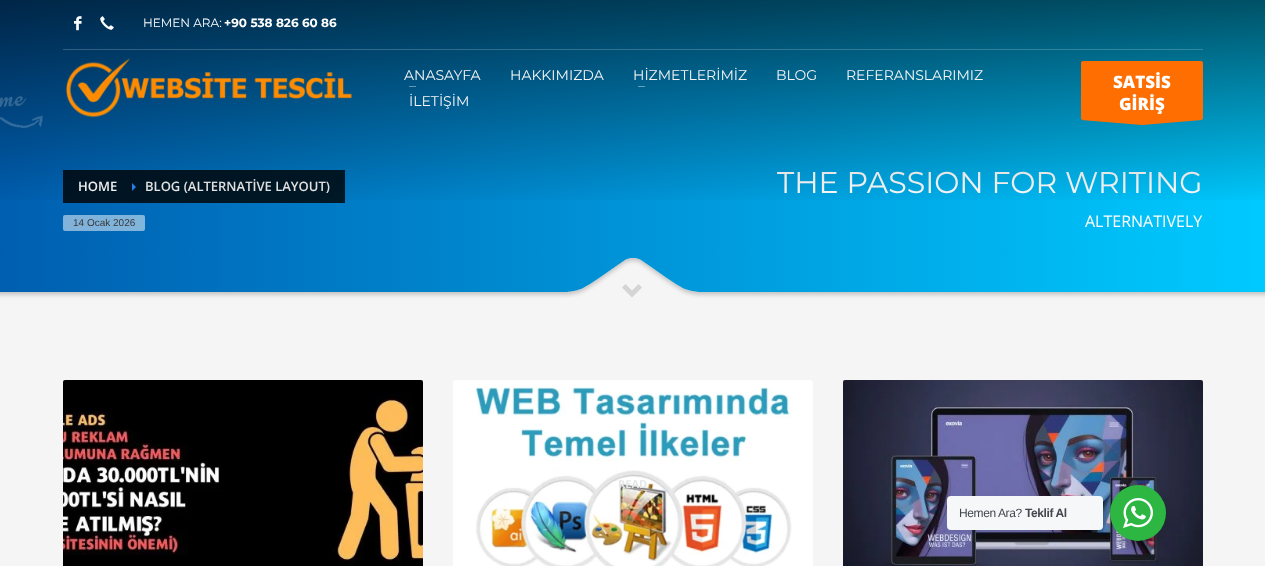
<svg xmlns="http://www.w3.org/2000/svg" width="1265" height="566" viewBox="0 0 1265 566">
  <defs>
    <linearGradient id="g1" gradientUnits="userSpaceOnUse" x1="0" y1="150" x2="1265" y2="150"><stop offset="0" stop-color="rgb(0,94,176)"/><stop offset="1" stop-color="rgb(0,202,255)"/></linearGradient>
    <linearGradient id="g2" gradientUnits="userSpaceOnUse" x1="0" y1="150" x2="1265" y2="150"><stop offset="0" stop-color="rgb(0,19,35)"/><stop offset="1" stop-color="rgb(0,40,51)"/></linearGradient>
    <linearGradient id="g3" gradientUnits="userSpaceOnUse" x1="633" y1="0" x2="633" y2="207"><stop offset="0" stop-color="rgb(0,0,0)" stop-opacity="0.6"/><stop offset="1" stop-color="rgb(0,0,0)" stop-opacity="0"/></linearGradient>
  </defs>
  <rect width="100%" height="100%" fill="rgb(245,245,245)"/>
  <rect x="0" y="0" width="1265" height="292" fill="url(#g1)"/>
  <rect x="122" y="170" width="223" height="33" fill="url(#g2)"/>
  <rect x="63" y="170" width="59" height="33" fill="url(#g2)"/>
  <text x="78" y="191" font-family="Open Sans" font-size="13" font-weight="600" fill="rgb(255,255,255)">HOME</text>
  <path d="M132 191V183L136 187Z" fill="rgb(39,133,247)"/>
  <text x="145" y="191" font-family="Open Sans" font-size="13" font-weight="600" fill="rgb(238,238,238)">BLOG (ALTERNATİVE LAYOUT)</text>
  <text x="777" y="193" font-family="Montserrat" font-size="30" fill="rgb(255,255,255)">THE PASSION FOR WRITING</text>
  <rect x="0" y="0" width="1265" height="200" fill="url(#g3)"/>
  <image x="74" y="16" width="8" height="15" href="pic1.png"/>
  <image x="100" y="16" width="14" height="14" href="pic2.png"/>
  <text x="143" y="27" font-family="Montserrat" font-size="12" fill="rgb(255,255,255)">HEMEN ARA:</text>
  <text x="224" y="27" font-family="Montserrat" font-size="12" font-weight="bold" fill="rgb(255,255,255)">+90 538 826 60 86</text>
  <rect x="63" y="49" width="1140" height="1" fill="rgba(255,255,255,0.2)"/>
  <image x="0" y="96" width="43" height="32" href="pic3.png"/>
  <image x="65" y="58" width="287" height="60" href="pic4.png"/>
  <text x="404" y="80" font-family="Montserrat" font-size="14" fill="rgb(245,245,245)">ANASAYFA</text>
  <rect x="409" y="86" width="7" height="1" fill="rgb(102,152,181)"/>
  <g font-family="Montserrat" font-size="14" fill="rgb(245,245,245)">
    <text x="510" y="80">HAKKIMIZDA</text>
    <text x="633" y="80">HİZMETLERİMİZ</text>
  </g>
  <rect x="638" y="86" width="7" height="1" fill="rgb(102,160,186)"/>
  <g font-family="Montserrat" font-size="14" fill="rgb(245,245,245)">
    <text x="776" y="80">BLOG</text>
    <text x="846" y="80">REFERANSLARIMIZ</text>
    <text x="409" y="106">İLETİŞİM</text>
  </g>
  <rect x="1081" y="61" width="122" height="59" rx="2" fill="rgb(255,110,0)"/>
  <g font-family="Open Sans" font-size="17" font-weight="800" fill="rgb(255,255,255)">
    <text x="1113" y="88">SATSİS</text>
    <text x="1119" y="110">GİRİŞ</text>
  </g>
  <path d="M1202 120L1142 125L1081 120Z" fill="rgb(255,110,0)" fill-rule="evenodd"/>
  <rect x="63" y="215" width="82" height="16" rx="2" fill="rgba(255,255,255,0.5)"/>
  <text x="73" y="226" font-family="Liberation Sans" font-size="10" fill="rgb(56,56,56)">14 Ocak 2026</text>
  <text x="1085" y="227" font-family="Open Sans" font-size="16" fill="rgb(255,255,255)">ALTERNATIVELY</text>
  <image x="0" y="258" width="1265" height="42" href="pic5.png"/>
  <path d="M642 287.5L632 297.5L622 287.5L625.5 284L632 290.5L638.5 284Z" fill="rgb(213,213,213)"/>
  <image x="63" y="380" width="360" height="186" href="pic6.png"/>
  <rect x="453" y="380" width="360" height="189" rx="3" fill="rgb(255,255,255)"/>
  <image x="475" y="386" width="317" height="180" href="pic7.png"/>
  <text x="618" y="488" font-family="Open Sans" font-size="11" font-weight="bold" fill="rgb(230,231,231)">READ</text>
  <image x="843" y="380" width="360" height="186" href="pic8.png"/>
  <rect x="1108" y="489" width="60" height="60" rx="30" fill="rgba(0,0,0,0.14)" filter="blur(4px)"/>
  <rect x="947" y="496" width="156" height="34" rx="4" fill="rgb(245,247,249)"/>
  <text x="959" y="517" font-family="Liberation Sans" font-size="12" letter-spacing="-0.4" fill="rgb(67,71,78)">Hemen Ara?</text>
  <text x="1025" y="517" font-family="Liberation Sans" font-size="12" font-weight="bold" letter-spacing="-0.4" fill="rgb(67,71,78)">Teklif Al</text>
  <circle cx="1138" cy="513" r="28" fill="rgb(45,183,66)"/>
  <image x="1123" y="498" width="30" height="30" href="pic9.png"/>
</svg>
